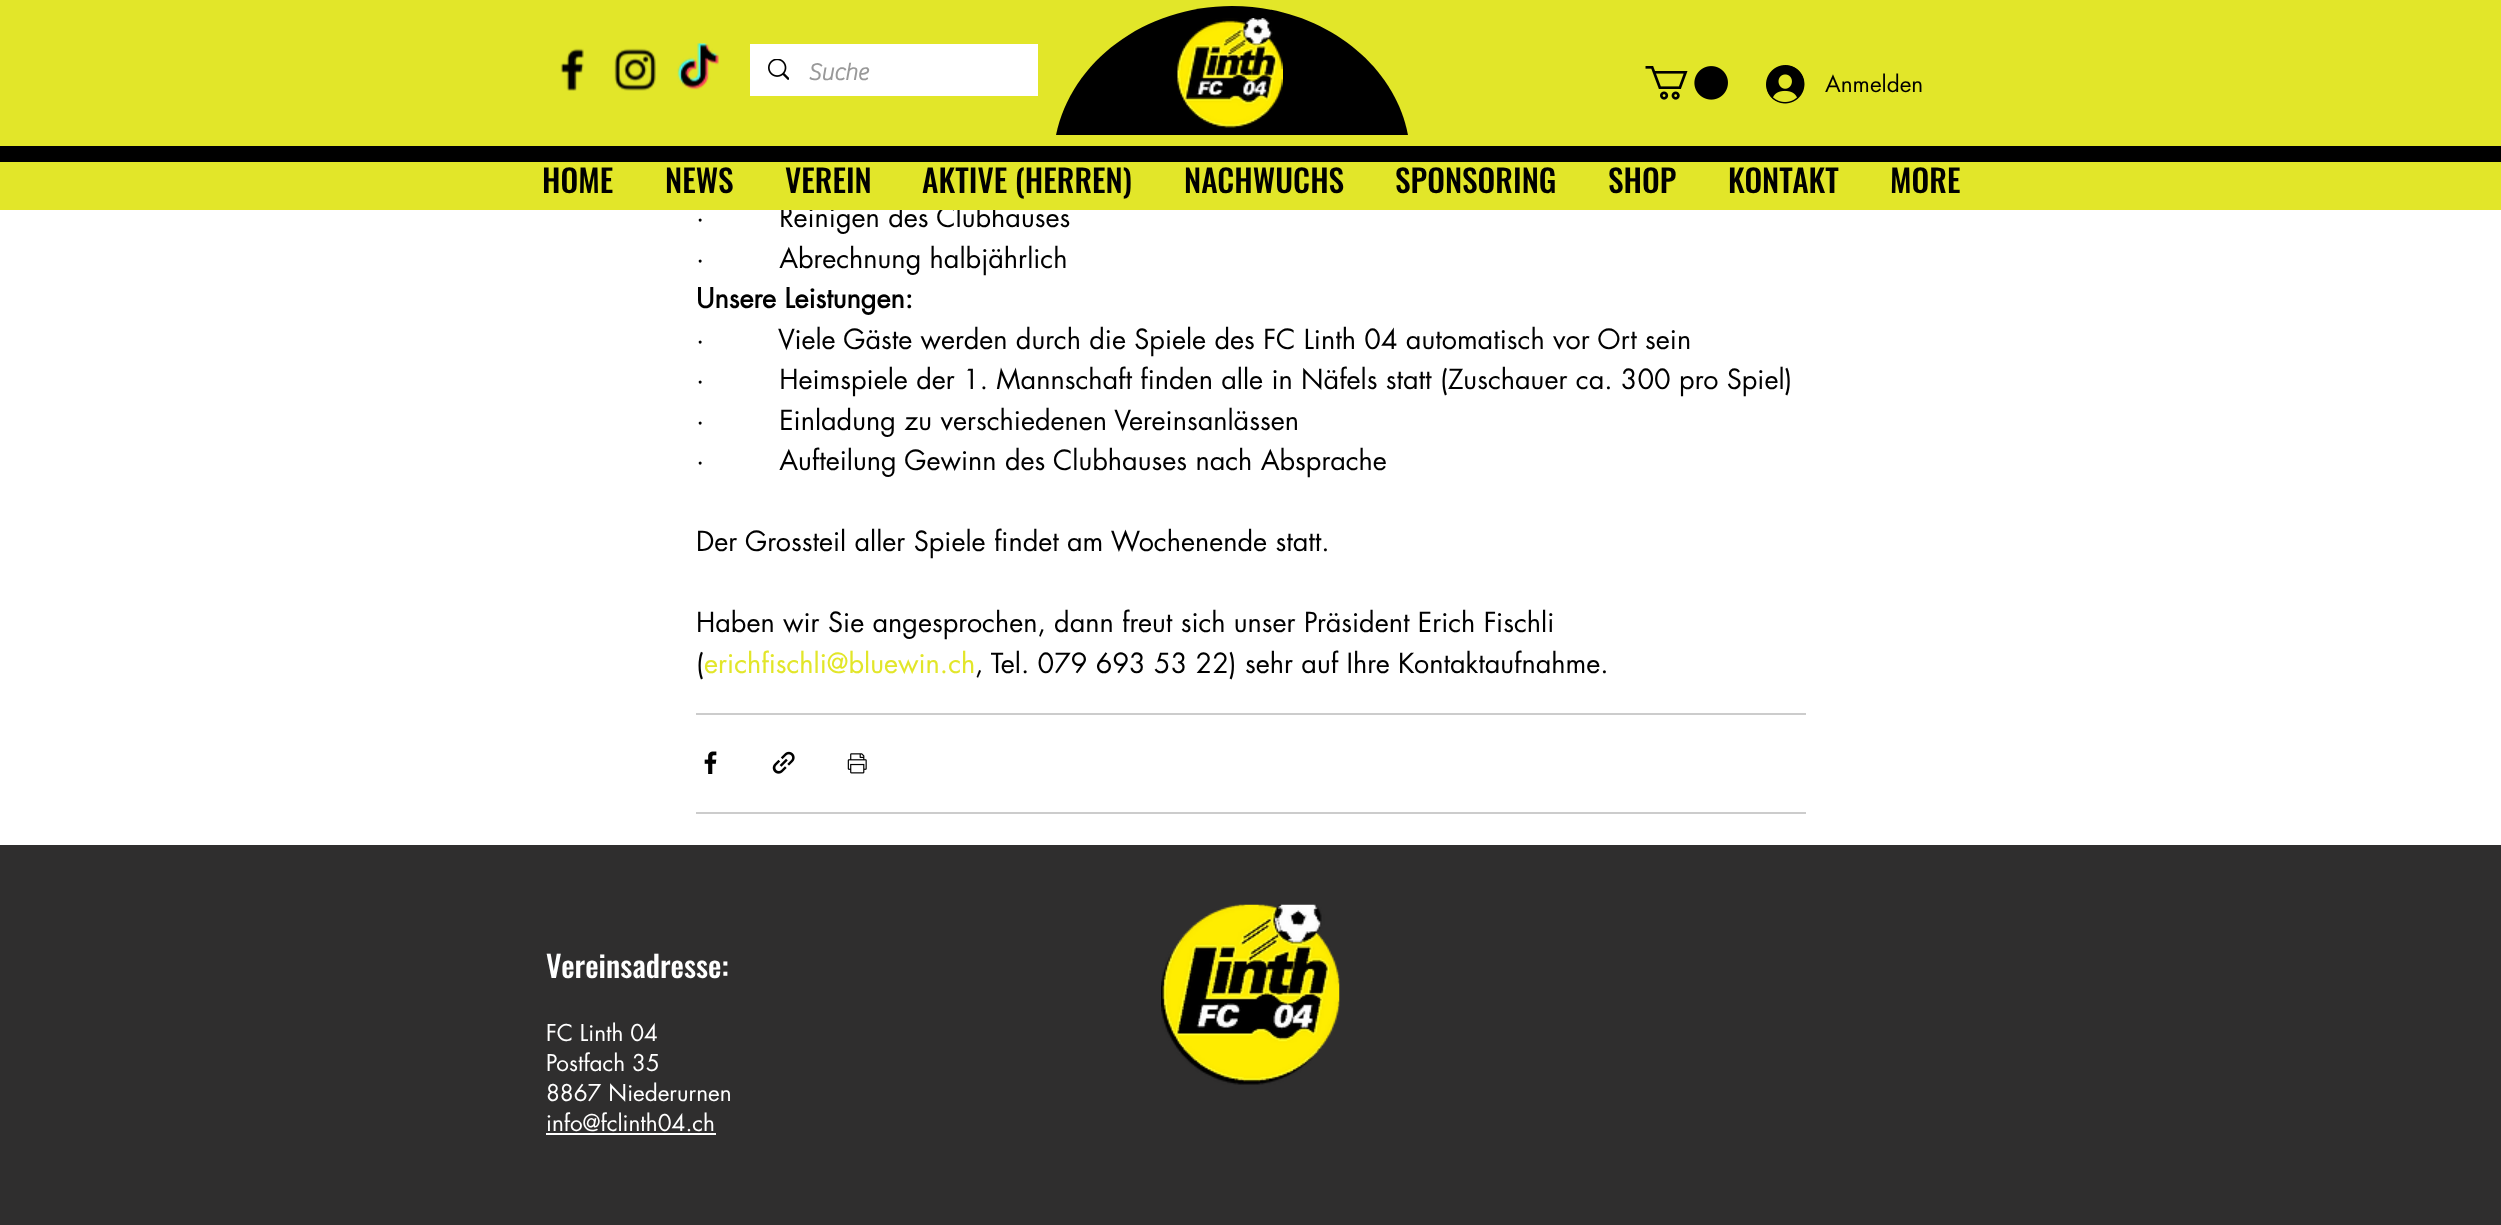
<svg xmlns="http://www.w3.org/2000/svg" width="2501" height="1225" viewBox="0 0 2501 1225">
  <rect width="100%" height="100%" fill="rgb(255,255,255)"/>
  <text x="696" y="227" font-family="futura" font-size="27" fill="rgb(0,0,0)" xml:space="preserve">·         Reinigen des Clubhauses</text>
  <rect x="0" y="0" width="2501" height="210" fill="rgb(226,230,41)"/>
  <path d="M1408 135C1394 62 1320 6 1232 6C1144 6 1071 62 1056 135Z" fill="rgb(0,0,0)"/>
  <image x="560" y="48" width="24" height="43" href="pic1.png"/>
  <image x="614" y="48" width="42" height="43" href="pic2.png"/>
  <image x="677" y="43" width="42" height="47" href="pic3.png"/>
  <rect x="750" y="44" width="288" height="52" fill="rgb(255,255,255)"/>
  <image x="768" y="59" width="21" height="21" href="pic4.png"/>
  <text x="808" y="80" font-family="'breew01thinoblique'" font-size="24" font-weight="bold" fill="rgb(153,153,153)">Suche</text>
  <image x="1177" y="18" width="106" height="110" href="pic5.png"/>
  <image x="1645" y="66" width="83" height="34" href="pic6.png"/>
  <image x="1766" y="65" width="39" height="39" href="pic7.png"/>
  <text x="1825" y="92" font-family="futura" font-size="22.5" fill="rgb(0,0,0)">Anmelden</text>
  <rect x="0" y="146" width="2501" height="16" fill="rgb(0,0,0)"/>
  <g font-family="Oswald" font-size="31.5" font-weight="500" fill="rgb(0,0,0)">
    <text x="542" y="193">HOME</text>
    <text x="665" y="193">NEWS</text>
    <text x="785" y="193">VEREIN</text>
    <text x="922" y="193">AKTIVE (HERREN)</text>
    <text x="1184" y="193">NACHWUCHS</text>
    <text x="1395" y="193">SPONSORING</text>
    <text x="1608" y="193">SHOP</text>
    <text x="1728" y="193">KONTAKT</text>
    <text x="1890" y="193">MORE</text>
  </g>
  <text x="696" y="268" font-family="futura" font-size="27" fill="rgb(0,0,0)" xml:space="preserve">·         Abrechnung halbjährlich</text>
  <text x="696" y="308" font-family="futura" font-size="27" font-weight="bold" fill="rgb(0,0,0)">Unsere Leistungen:</text>
  <g font-family="futura" font-size="27" fill="rgb(0,0,0)">
    <text xml:space="preserve"><tspan x="696" y="349">·         Viele Gäste werden durch die Spiele des FC Linth 04 automatisch vor Ort sein</tspan><tspan x="696" y="389">·         Heimspiele der 1. Mannschaft finden alle in Näfels statt (Zuschauer ca. 300 pro Spiel)</tspan><tspan x="696" y="430">·         Einladung zu verschiedenen Vereinsanlässen</tspan><tspan x="696" y="470">·         Aufteilung Gewinn des Clubhauses nach Absprache</tspan></text>
    <text x="696" y="551">Der Grossteil aller Spiele findet am Wochenende statt.</text>
    <text>
      <tspan x="696" y="632">Haben wir Sie angesprochen, dann freut sich unser Präsident Erich Fischli</tspan>
      <tspan x="696" y="673">(</tspan>
    </text>
  </g>
  <text x="704" y="673" font-family="futura" font-size="27" fill="rgb(226,230,41)">erichfischli@bluewin.ch</text>
  <text x="975" y="673" font-family="futura" font-size="27" fill="rgb(0,0,0)">, Tel. 079 693 53 22) sehr auf Ihre Kontaktaufnahme.</text>
  <rect x="696" y="713" width="1110" height="2" fill="rgb(204,204,204)"/>
  <image x="704" y="751" width="13" height="23" href="pic8.png"/>
  <image x="772" y="751" width="23" height="23" href="pic9.png"/>
  <image x="847" y="753" width="20" height="21" href="pic10.png"/>
  <rect x="696" y="812" width="1110" height="2" fill="rgb(204,204,204)"/>
  <rect x="0" y="845" width="2501" height="380" fill="rgb(47,46,46)"/>
  <text x="546" y="978" font-family="Oswald" font-size="30" font-weight="500" fill="rgb(255,255,255)">Vereinsadresse:</text>
  <g font-family="futura" font-size="22.5" fill="rgb(255,255,255)">
    <text>
      <tspan x="546" y="1041">FC Linth 04</tspan>
      <tspan x="546" y="1071">Postfach 35</tspan>
      <tspan x="546" y="1101">8867 Niederurnen</tspan>
      <tspan x="546" y="1131">info@fclinth04.ch</tspan>
    </text>
  </g>
  <rect x="546" y="1133" width="170" height="2" fill="rgb(255,255,255)"/>
  <image x="1161" y="904" width="179" height="181" href="pic11.png"/>
</svg>
